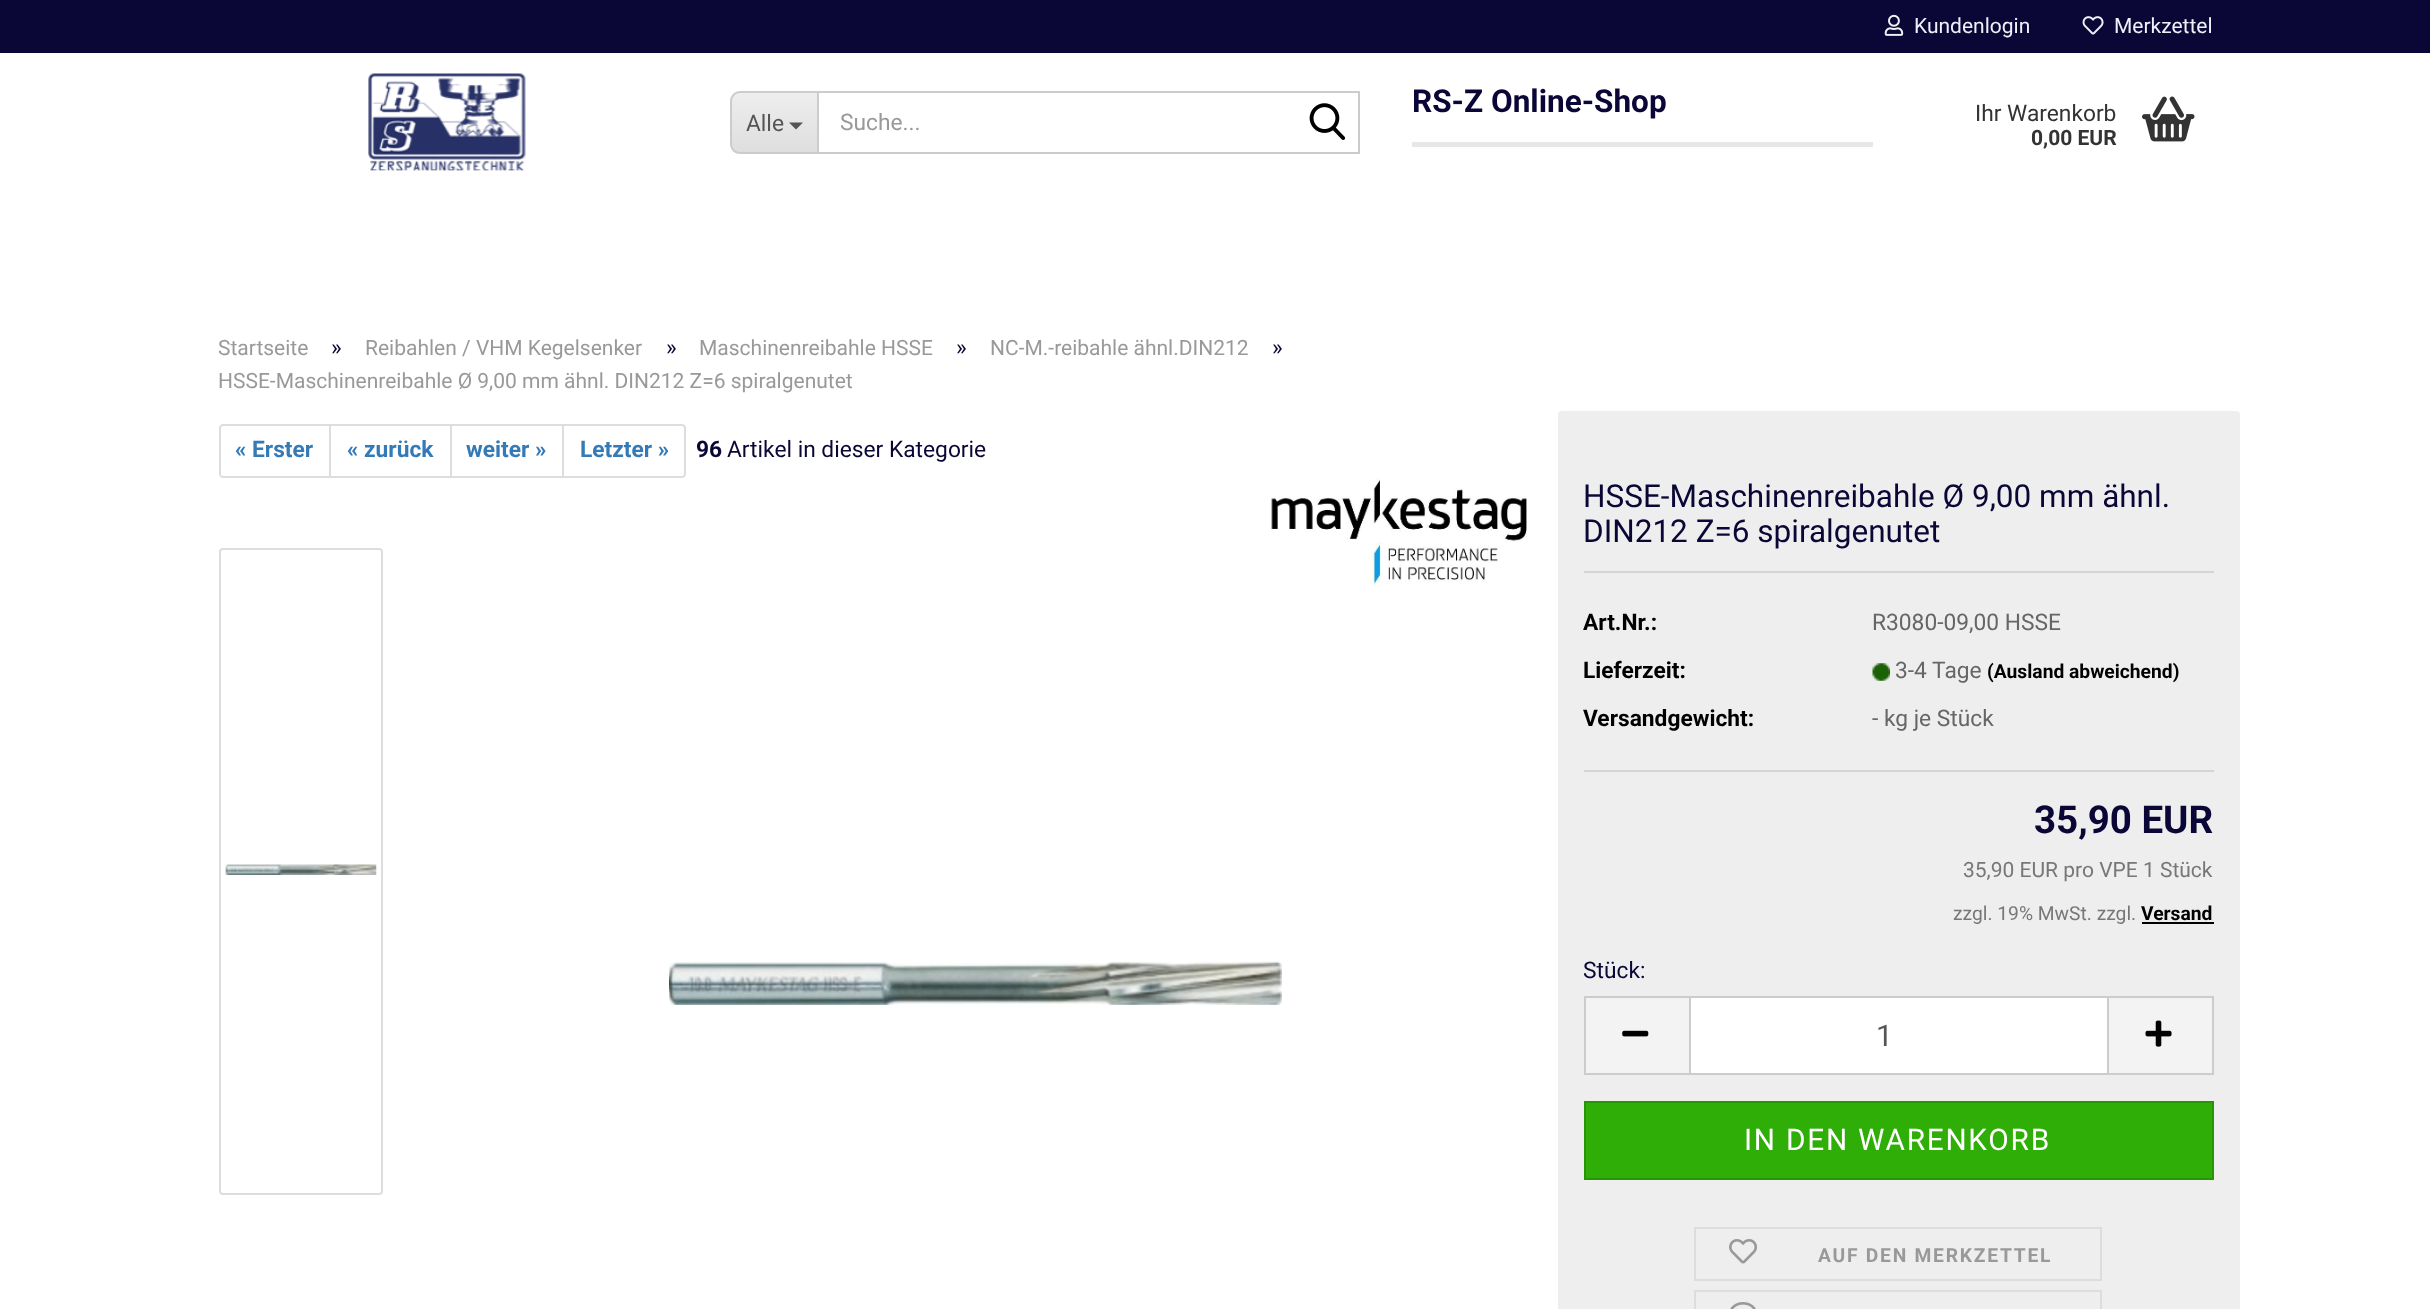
<svg xmlns="http://www.w3.org/2000/svg" width="2430" height="1309" viewBox="0 0 2430 1309">
  <defs>
    <clipPath id="clip1"><path d="M741 91H817V154H741C735 154 730 149 730 143V102C730 96 735 91 741 91Z"/></clipPath>
    <linearGradient id="g1" gradientUnits="userSpaceOnUse" x1="774" y1="93" x2="774" y2="152"><stop offset="0" stop-color="rgb(238,238,238)"/><stop offset="1" stop-color="rgb(222,222,222)"/></linearGradient>
  </defs>
  <rect width="100%" height="100%" fill="rgb(255,255,255)"/>
  <rect x="0" y="0" width="2430" height="53" fill="rgb(10,7,54)"/>
  <image x="1884" y="14" width="20" height="22" href="pic1.png"/>
  <text x="1914" y="33" font-family="Roboto" font-size="21" fill="rgb(240,240,248)">Kundenlogin</text>
  <image x="2082" y="16" width="22" height="19" href="pic2.png"/>
  <text x="2114" y="33" font-family="Roboto" font-size="21" fill="rgb(240,240,248)">Merkzettel</text>
  <image x="368" y="73" width="158" height="98" href="pic3.png"/>
  <g clip-path="url(#clip1)">
    <rect x="730" y="93" width="87" height="59" fill="url(#g1)"/>
  </g>
  <path d="M740 91H817V154H740C734 154 730 149 730 144V102C730 96 734 91 740 91ZM740 93H817V152H740C735 152 732 148 732 144V102C732 97 735 93 740 93Z" fill="rgb(204,204,204)" fill-rule="evenodd"/>
  <text x="746" y="131" font-family="Roboto" font-size="22.75" fill="rgb(85,85,85)">Alle</text>
  <path d="M789 122.5H803L796 129.5Z" fill="rgb(85,85,85)"/>
  <rect x="818" y="92" width="541" height="61" fill="none" stroke="rgb(204,204,204)" stroke-width="2"/>
  <text x="840" y="130" font-family="Roboto" font-size="22.75" fill="rgb(153,153,153)">Suche...</text>
  <image x="1309" y="103" width="37" height="37" href="pic4.png"/>
  <rect x="1412" y="142" width="461" height="5" fill="rgb(231,231,231)"/>
  <text x="1412" y="112" font-family="Roboto" font-size="31.5" font-weight="bold" fill="rgb(10,7,54)">RS-Z Online-Shop</text>
  <text x="1975" y="121" font-family="Roboto" font-size="22.75" fill="rgb(51,51,51)">Ihr Warenkorb</text>
  <text x="2031" y="145" font-family="Roboto" font-size="21" font-weight="bold" fill="rgb(51,51,51)">0,00 EUR</text>
  <image x="2142" y="96" width="53" height="46" href="pic5.png"/>
  <text x="218" y="355" font-family="Roboto" font-size="21" fill="rgb(153,153,153)">Startseite</text>
  <text x="331" y="355" font-family="Roboto" font-size="22.75" fill="rgb(10,7,54)">»</text>
  <text x="365" y="355" font-family="Roboto" font-size="21" fill="rgb(153,153,153)">Reibahlen / VHM Kegelsenker</text>
  <text x="666" y="355" font-family="Roboto" font-size="22.75" fill="rgb(10,7,54)">»</text>
  <text x="699" y="355" font-family="Roboto" font-size="21" fill="rgb(153,153,153)">Maschinenreibahle HSSE</text>
  <text x="956" y="355" font-family="Roboto" font-size="22.75" fill="rgb(10,7,54)">»</text>
  <text x="990" y="355" font-family="Roboto" font-size="21" fill="rgb(153,153,153)">NC-M.-reibahle ähnl.DIN212</text>
  <text x="1272" y="355" font-family="Roboto" font-size="22.75" fill="rgb(10,7,54)">»</text>
  <text x="218" y="388" font-family="Roboto" font-size="21" fill="rgb(153,153,153)">HSSE-Maschinenreibahle Ø 9,00 mm ähnl. DIN212 Z=6 spiralgenutet</text>
  <path d="M223 425H330V477H223C221.5 477 220 475.5 220 474V428C220 426.5 221.5 425 223 425Z" fill="none" stroke="rgb(221,221,221)" stroke-width="2"/>
  <text x="235" y="457" font-family="Roboto" font-size="22.75" font-weight="bold" fill="rgb(51,122,183)">« Erster</text>
  <rect x="330" y="425" width="121" height="52" fill="none" stroke="rgb(221,221,221)" stroke-width="2"/>
  <text x="347" y="457" font-family="Roboto" font-size="22.75" font-weight="bold" fill="rgb(51,122,183)">« zurück</text>
  <rect x="451" y="425" width="112" height="52" fill="none" stroke="rgb(221,221,221)" stroke-width="2"/>
  <text x="466" y="457" font-family="Roboto" font-size="22.75" font-weight="bold" fill="rgb(51,122,183)">weiter »</text>
  <path d="M563 425H682C683.5 425 685 426.5 685 428V474C685 475.5 683.5 477 682 477H563Z" fill="rgb(255,255,255)" stroke="rgb(221,221,221)" stroke-width="2"/>
  <text x="580" y="457" font-family="Roboto" font-size="22.75" font-weight="bold" fill="rgb(51,122,183)">Letzter »</text>
  <text x="696" y="457" font-family="Roboto" font-size="22.75" font-weight="bold" fill="rgb(10,7,54)">96</text>
  <text x="727" y="457" font-family="Roboto" font-size="22.75" fill="rgb(10,7,54)">Artikel in dieser Kategorie</text>
  <image x="1271" y="478" width="256" height="108" href="pic6.png"/>
  <rect x="220" y="549" width="162" height="645" rx="3" fill="none" stroke="rgb(221,221,221)" stroke-width="2"/>
  <image x="225" y="864" width="152" height="11" href="pic7.png"/>
  <image x="669" y="961" width="613" height="44" href="pic8.png"/>
  <rect x="1558" y="411" width="682" height="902" rx="4" fill="rgb(238,238,238)"/>
  <rect x="1584" y="571" width="630" height="2" fill="rgb(213,213,213)"/>
  <g font-family="Roboto" font-size="31.5" fill="rgb(10,7,54)">
    <text>
      <tspan x="1583" y="507">HSSE-Maschinenreibahle Ø 9,00 mm ähnl.</tspan>
      <tspan x="1583" y="542">DIN212 Z=6 spiralgenutet</tspan>
    </text>
  </g>
  <rect x="1584" y="770" width="630" height="2" fill="rgb(213,213,213)"/>
  <text x="1583" y="630" font-family="Roboto" font-size="22.75" font-weight="bold" fill="rgb(0,0,0)">Art.Nr.:</text>
  <text x="1872" y="630" font-family="Roboto" font-size="22.75" fill="rgb(102,102,102)">R3080-09,00 HSSE</text>
  <text x="1583" y="678" font-family="Roboto" font-size="22.75" font-weight="bold" fill="rgb(0,0,0)">Lieferzeit:</text>
  <image x="1872" y="663" width="18" height="18" href="pic9.png"/>
  <text x="1895" y="678" font-family="Roboto" font-size="22.75" fill="rgb(102,102,102)">3-4 Tage</text>
  <text x="1987" y="678" font-family="Roboto" font-size="19.25" font-weight="bold" fill="rgb(0,0,0)">(Ausland abweichend)</text>
  <text x="1583" y="726" font-family="Roboto" font-size="22.75" font-weight="bold" fill="rgb(0,0,0)">Versandgewicht:</text>
  <text x="1872" y="726" font-family="Roboto" font-size="22.75" fill="rgb(102,102,102)">- kg je Stück</text>
  <text x="2034" y="833" font-family="Roboto" font-size="38.5" font-weight="bold" fill="rgb(10,7,54)">35,90 EUR</text>
  <text x="1963" y="877" font-family="Roboto" font-size="21" fill="rgb(119,119,119)">35,90 EUR pro VPE 1 Stück</text>
  <text x="1953" y="920" font-family="Roboto" font-size="19.25" fill="rgb(119,119,119)">zzgl. 19% MwSt. zzgl.</text>
  <text x="2141" y="920" font-family="Roboto" font-size="19.25" font-weight="bold" fill="rgb(0,0,0)">Versand</text>
  <rect x="2142" y="922" width="72" height="2" fill="rgb(0,0,0)"/>
  <text x="1583" y="978" font-family="Roboto" font-size="22.75" fill="rgb(10,7,54)">Stück:</text>
  <rect x="1586" y="998" width="103" height="75" fill="rgb(243,243,243)"/>
  <rect x="1584" y="996" width="105" height="2" fill="rgb(204,204,204)"/>
  <rect x="1584" y="1073" width="105" height="2" fill="rgb(204,204,204)"/>
  <rect x="1584" y="996" width="2" height="79" fill="rgb(204,204,204)"/>
  <image x="1622" y="1030" width="27" height="7" href="pic10.png"/>
  <rect x="1690" y="997" width="418" height="77" fill="rgb(255,255,255)" stroke="rgb(204,204,204)" stroke-width="2"/>
  <text x="1876" y="1046" font-family="Roboto" font-size="29.75" fill="rgb(85,85,85)">1</text>
  <rect x="2109" y="998" width="103" height="75" fill="rgb(243,243,243)"/>
  <rect x="2109" y="996" width="105" height="2" fill="rgb(204,204,204)"/>
  <rect x="2212" y="996" width="2" height="79" fill="rgb(204,204,204)"/>
  <rect x="2109" y="1073" width="105" height="2" fill="rgb(204,204,204)"/>
  <image x="2145" y="1020" width="27" height="27" href="pic11.png"/>
  <rect x="1585" y="1102" width="628" height="77" fill="rgb(46,174,6)" stroke="rgb(39,149,5)" stroke-width="2"/>
  <text x="1744" y="1150" font-family="Roboto" font-size="29.75" letter-spacing="1.75" fill="rgb(255,255,255)">IN DEN WARENKORB</text>
  <rect x="1695" y="1228" width="406" height="52" fill="none" stroke="rgb(221,221,221)" stroke-width="2"/>
  <image x="1729" y="1239" width="28" height="25" href="pic12.png"/>
  <text x="1818" y="1262" font-family="Roboto" font-size="19.25" font-weight="bold" letter-spacing="1.75" fill="rgb(153,153,153)">AUF DEN MERKZETTEL</text>
  <rect x="1695" y="1291" width="406" height="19" fill="none" stroke="rgb(221,221,221)" stroke-width="2"/>
  <image x="1730" y="1302" width="26" height="7" href="pic13.png"/>
</svg>
